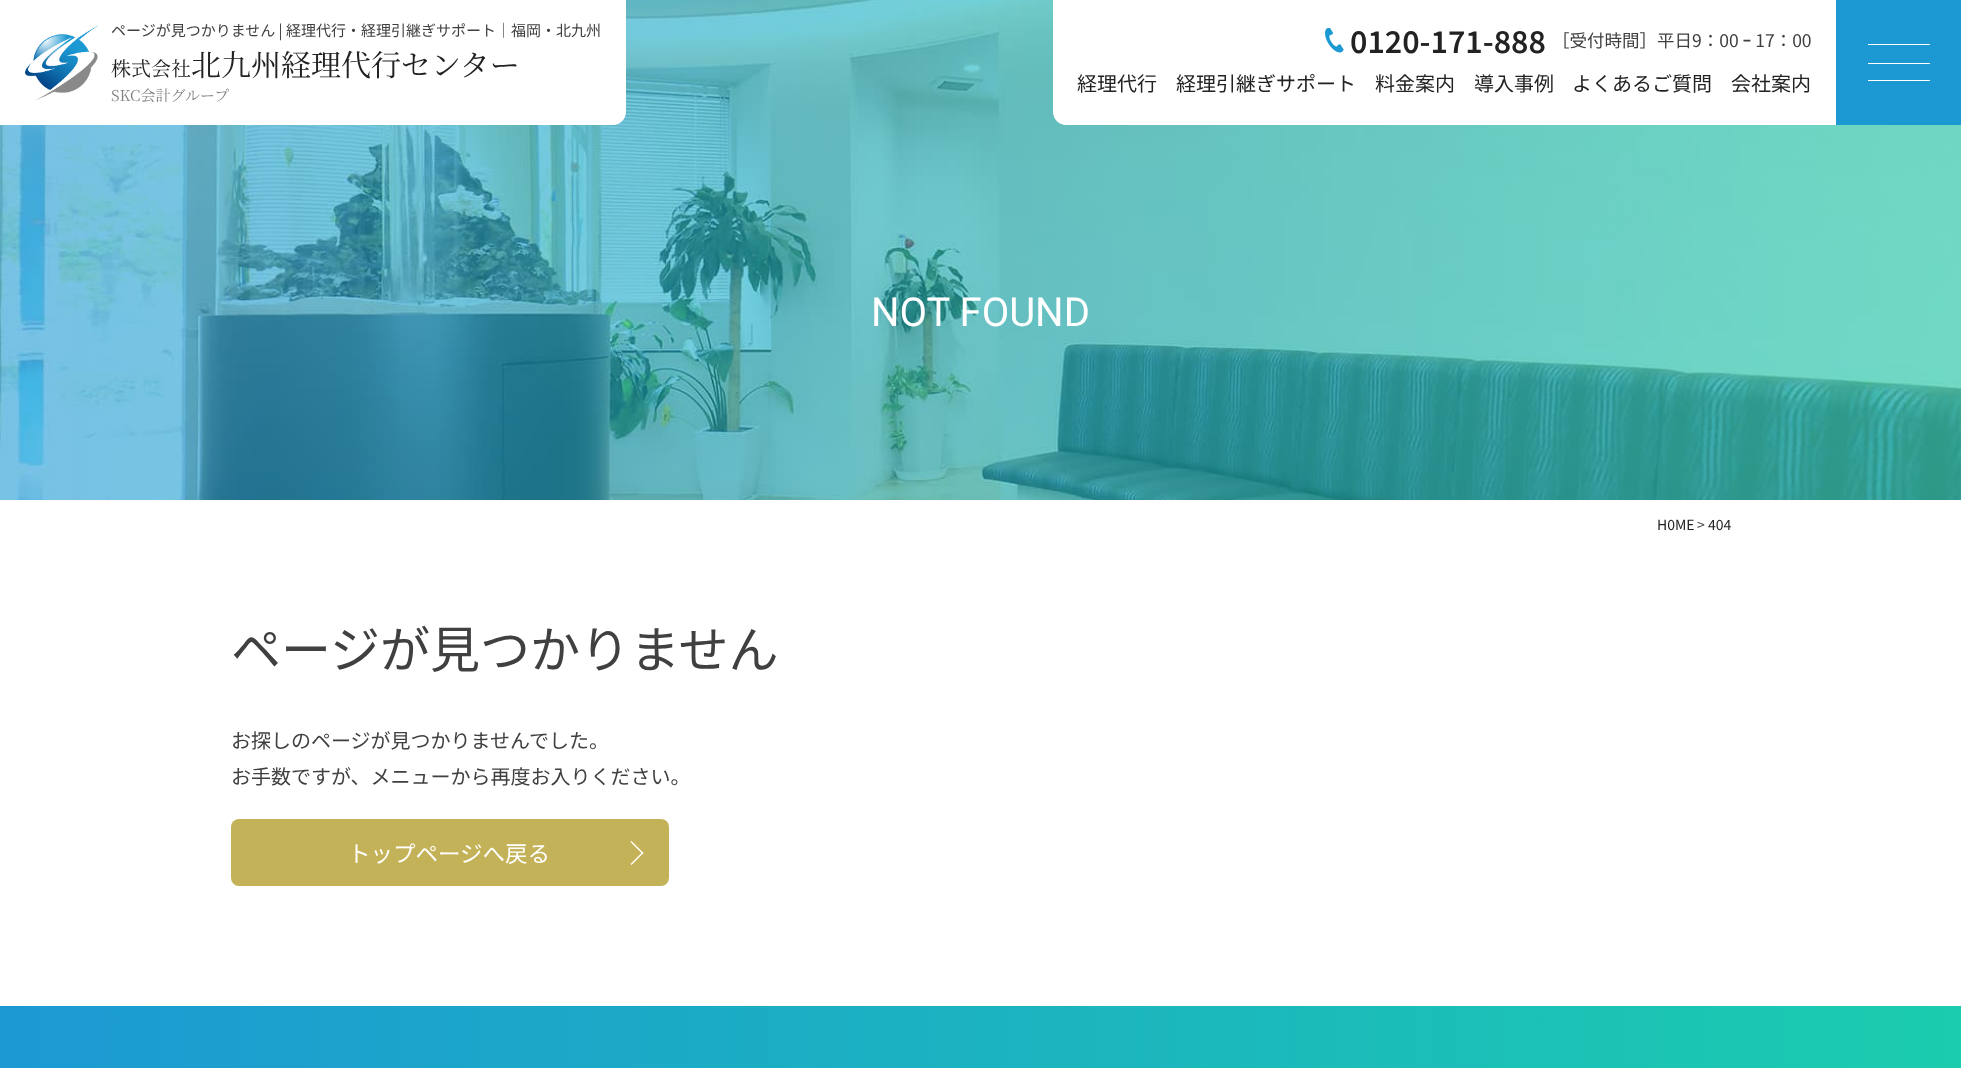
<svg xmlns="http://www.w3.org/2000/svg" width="1961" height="1068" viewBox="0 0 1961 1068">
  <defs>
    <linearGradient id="g1" gradientUnits="userSpaceOnUse" x1="0" y1="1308" x2="1961" y2="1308"><stop offset="0" stop-color="rgb(28,153,211)"/><stop offset="1" stop-color="rgb(27,204,174)"/></linearGradient>
  </defs>
  <rect width="100%" height="100%" fill="rgb(255,255,255)"/>
  <image x="0" y="0" width="1961" height="500" href="pic3.png"/>
  <path d="M0 0H626V112C626 119 620 125 613 125H0Z" fill="rgb(255,255,255)"/>
  <image x="25" y="25" width="74" height="75" href="pic1.png"/>
  <text x="111" y="36" font-family="Noto Sans JP" font-size="15" fill="rgb(64,64,64)">ページが見つかりません | 経理代行・経理引継ぎサポート｜福岡・北九州</text>
  <text x="111" y="76" font-family="Noto Serif JP" font-size="20" fill="rgb(34,34,34)">株式会社</text>
  <text x="191" y="76" font-family="Noto Serif JP" font-size="30" fill="rgb(34,34,34)">北九州経理代行センター</text>
  <text x="111" y="101" font-family="Noto Serif JP" font-size="15" fill="rgb(128,128,128)">SKC会計グループ</text>
  <path d="M1053 0H1836V125H1066C1059 125 1053 119 1053 112Z" fill="rgb(255,255,255)"/>
  <image x="1325" y="28" width="19" height="25" href="pic2.png"/>
  <text x="1350" y="53" font-family="Noto Sans JP" font-size="30" font-weight="600" fill="rgb(34,34,34)">0120-171-888</text>
  <text x="1552" y="47" font-family="Noto Sans JP" font-size="17.5" fill="rgb(64,64,64)">［受付時間］平日9：00 ｰ 17：00</text>
  <g font-family="Noto Sans JP" font-size="20" fill="rgb(34,34,34)">
    <text x="1077" y="91">経理代行</text>
    <text x="1176" y="91">経理引継ぎサポート</text>
    <text x="1375" y="91">料金案内</text>
    <text x="1474" y="91">導入事例</text>
    <text x="1572" y="91">よくあるご質問</text>
    <text x="1731" y="91">会社案内</text>
  </g>
  <rect x="1836" y="0" width="125" height="125" fill="rgb(28,153,211)"/>
  <rect x="1868" y="44" width="62" height="1" fill="rgb(255,255,255)"/>
  <rect x="1868" y="63" width="62" height="1" fill="rgb(255,255,255)"/>
  <rect x="1868" y="80" width="62" height="1" fill="rgb(255,255,255)"/>
  <text x="871" y="326" font-family="Roboto" font-size="40" fill="rgb(255,255,255)">NOT FOUND</text>
  <text x="1657" y="530" font-family="Noto Sans JP" font-size="14" fill="rgb(34,34,34)">H0ME</text>
  <text x="1697" y="530" font-family="Noto Sans JP" font-size="14" fill="rgb(64,64,64)">&gt;</text>
  <text x="1708" y="530" font-family="Noto Sans JP" font-size="14" fill="rgb(34,34,34)">404</text>
  <text x="231" y="668" font-family="Noto Sans JP" font-size="50" fill="rgb(64,64,64)">ページが見つかりません</text>
  <g font-family="Noto Sans JP" font-size="20" fill="rgb(64,64,64)">
    <text>
      <tspan x="231" y="748">お探しのページが見つかりませんでした。</tspan>
      <tspan x="231" y="784">お手数ですが、メニューから再度お入りください。</tspan>
    </text>
  </g>
  <rect x="231" y="819" width="438" height="67" rx="8" fill="rgb(196,178,88)"/>
  <text x="348" y="862" font-family="Noto Sans JP" font-size="22.5" fill="rgb(255,255,255)">トップページへ戻る</text>
  <path d="M631.5 841L643.5 853L642.5 854L630.5 842Z" fill="rgb(255,255,255)"/>
  <path d="M642.5 852L643.5 853L631.5 865L630.5 864Z" fill="rgb(255,255,255)"/>
  <rect x="0" y="1006" width="1961" height="62" fill="url(#g1)"/>
</svg>
